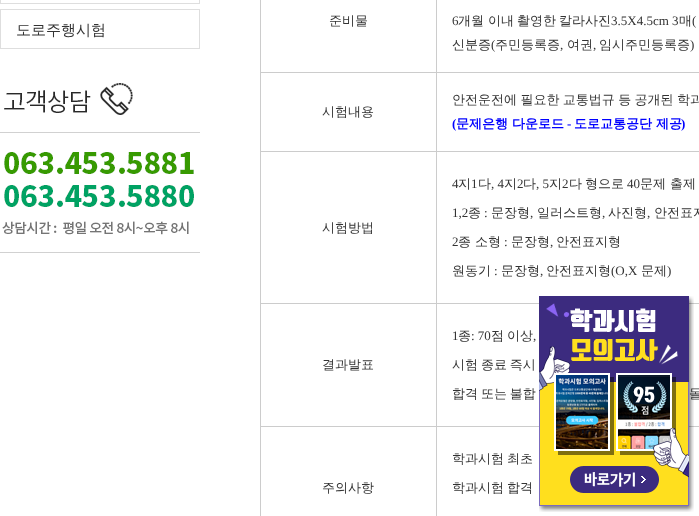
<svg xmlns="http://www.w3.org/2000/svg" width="699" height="516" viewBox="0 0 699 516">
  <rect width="100%" height="100%" fill="rgb(255,255,255)"/>
  <rect x="0.5" y="-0.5" width="199" height="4" fill="none" stroke="rgb(222,222,222)"/>
  <rect x="0.5" y="9.5" width="199" height="39" fill="none" stroke="rgb(222,222,222)"/>
  <text x="16" y="35" font-family="WenQuanYi Zen Hei" font-size="15" font-weight="500" fill="rgb(51,51,51)">도로주행시험</text>
  <image x="0" y="83" width="200" height="170" href="pic1.png"/>
  <text x="329" y="25" font-family="WenQuanYi Zen Hei" font-size="13" font-weight="500" fill="rgb(51,51,51)">준비물</text>
  <rect x="436" y="72" width="263" height="1" fill="rgb(204,204,204)"/>
  <rect x="436" y="151" width="263" height="1" fill="rgb(204,204,204)"/>
  <rect x="436" y="303" width="263" height="1" fill="rgb(204,204,204)"/>
  <rect x="436" y="426" width="263" height="1" fill="rgb(204,204,204)"/>
  <rect x="436" y="426" width="1" height="90" fill="rgb(204,204,204)"/>
  <rect x="260" y="426" width="177" height="1" fill="rgb(204,204,204)"/>
  <rect x="436" y="303" width="1" height="124" fill="rgb(204,204,204)"/>
  <rect x="260" y="303" width="177" height="1" fill="rgb(204,204,204)"/>
  <rect x="436" y="151" width="1" height="153" fill="rgb(204,204,204)"/>
  <rect x="260" y="151" width="177" height="1" fill="rgb(204,204,204)"/>
  <rect x="436" y="72" width="1" height="80" fill="rgb(204,204,204)"/>
  <rect x="260" y="72" width="177" height="1" fill="rgb(204,204,204)"/>
  <rect x="436" y="0" width="1" height="73" fill="rgb(204,204,204)"/>
  <text x="452" y="25" font-family="Liberation Serif" font-size="13" fill="rgb(51,51,51)">6</text>
  <g font-family="WenQuanYi Zen Hei" font-size="13" font-weight="500" fill="rgb(51,51,51)">
    <text x="458" y="25">개월</text>
    <text x="488" y="25">이내</text>
    <text x="517" y="25">촬영한</text>
    <text x="559" y="25">칼라사진</text>
  </g>
  <text x="611" y="25" font-family="Liberation Serif" font-size="13" fill="rgb(51,51,51)">3.5X4.5cm 3</text>
  <text x="679" y="25" font-family="WenQuanYi Zen Hei" font-size="13" font-weight="500" fill="rgb(51,51,51)">매</text>
  <text x="692" y="25" font-family="Liberation Serif" font-size="13" fill="rgb(51,51,51)">(</text>
  <text x="452" y="49" font-family="WenQuanYi Zen Hei" font-size="13" font-weight="500" fill="rgb(51,51,51)">신분증</text>
  <text x="491" y="49" font-family="Liberation Serif" font-size="13" fill="rgb(51,51,51)">(</text>
  <text x="495" y="49" font-family="WenQuanYi Zen Hei" font-size="13" font-weight="500" fill="rgb(51,51,51)">주민등록증</text>
  <text x="560" y="49" font-family="Liberation Serif" font-size="13" fill="rgb(51,51,51)">,</text>
  <text x="567" y="49" font-family="WenQuanYi Zen Hei" font-size="13" font-weight="500" fill="rgb(51,51,51)">여권</text>
  <text x="593" y="49" font-family="Liberation Serif" font-size="13" fill="rgb(51,51,51)">,</text>
  <text x="599" y="49" font-family="WenQuanYi Zen Hei" font-size="13" font-weight="500" fill="rgb(51,51,51)">임시주민등록증</text>
  <text x="690" y="49" font-family="Liberation Serif" font-size="13" fill="rgb(51,51,51)">)</text>
  <rect x="260" y="426" width="1" height="90" fill="rgb(204,204,204)"/>
  <rect x="260" y="303" width="1" height="124" fill="rgb(204,204,204)"/>
  <rect x="260" y="151" width="1" height="153" fill="rgb(204,204,204)"/>
  <rect x="260" y="0" width="1" height="152" fill="rgb(204,204,204)"/>
  <g font-family="WenQuanYi Zen Hei" font-size="13" font-weight="500" fill="rgb(51,51,51)">
    <text x="322" y="116">시험내용</text>
    <text x="452" y="104" word-spacing="-0.5">안전운전에 필요한 교통법규 등 공개된 학과</text>
  </g>
  <text x="452" y="128" font-family="Liberation Serif" font-size="13" font-weight="bold" fill="rgb(0,0,255)">(</text>
  <text x="456" y="128" font-family="WenQuanYi Zen Hei" font-size="13" font-weight="bold" fill="rgb(0,0,255)">문제은행 다운로드</text>
  <text x="567" y="128" font-family="Liberation Serif" font-size="13" font-weight="bold" fill="rgb(0,0,255)">-</text>
  <text x="574" y="128" font-family="WenQuanYi Zen Hei" font-size="13" font-weight="bold" fill="rgb(0,0,255)">도로교통공단 제공</text>
  <text x="681" y="128" font-family="Liberation Serif" font-size="13" font-weight="bold" fill="rgb(0,0,255)">)</text>
  <text x="322" y="232" font-family="WenQuanYi Zen Hei" font-size="13" font-weight="500" fill="rgb(51,51,51)">시험방법</text>
  <text x="452" y="188" font-family="Liberation Serif" font-size="13" fill="rgb(51,51,51)">4</text>
  <text x="458" y="188" font-family="WenQuanYi Zen Hei" font-size="13" font-weight="500" fill="rgb(51,51,51)">지</text>
  <text x="471" y="188" font-family="Liberation Serif" font-size="13" fill="rgb(51,51,51)">1</text>
  <text x="478" y="188" font-family="WenQuanYi Zen Hei" font-size="13" font-weight="500" fill="rgb(51,51,51)">다</text>
  <text x="491" y="188" font-family="Liberation Serif" font-size="13" fill="rgb(51,51,51)">, 4</text>
  <text x="504" y="188" font-family="WenQuanYi Zen Hei" font-size="13" font-weight="500" fill="rgb(51,51,51)">지</text>
  <text x="517" y="188" font-family="Liberation Serif" font-size="13" fill="rgb(51,51,51)">2</text>
  <text x="523" y="188" font-family="WenQuanYi Zen Hei" font-size="13" font-weight="500" fill="rgb(51,51,51)">다</text>
  <text x="536" y="188" font-family="Liberation Serif" font-size="13" fill="rgb(51,51,51)">, 5</text>
  <text x="549" y="188" font-family="WenQuanYi Zen Hei" font-size="13" font-weight="500" fill="rgb(51,51,51)">지</text>
  <text x="562" y="188" font-family="Liberation Serif" font-size="13" fill="rgb(51,51,51)">2</text>
  <g font-family="WenQuanYi Zen Hei" font-size="13" font-weight="500" fill="rgb(51,51,51)">
    <text x="569" y="188">다</text>
    <text x="585" y="188">형으로</text>
  </g>
  <text x="627" y="188" font-family="Liberation Serif" font-size="13" fill="rgb(51,51,51)">40</text>
  <g font-family="WenQuanYi Zen Hei" font-size="13" font-weight="500" fill="rgb(51,51,51)">
    <text x="640" y="188">문제</text>
    <text x="670" y="188">출제</text>
  </g>
  <text x="452" y="217" font-family="Liberation Serif" font-size="13" fill="rgb(51,51,51)">1,2</text>
  <text x="468" y="217" font-family="WenQuanYi Zen Hei" font-size="13" font-weight="500" fill="rgb(51,51,51)">종</text>
  <text x="484" y="217" font-family="Liberation Serif" font-size="13" fill="rgb(51,51,51)">:</text>
  <text x="491" y="217" font-family="WenQuanYi Zen Hei" font-size="13" font-weight="500" fill="rgb(51,51,51)">문장형</text>
  <text x="530" y="217" font-family="Liberation Serif" font-size="13" fill="rgb(51,51,51)">,</text>
  <text x="537" y="217" font-family="WenQuanYi Zen Hei" font-size="13" font-weight="500" fill="rgb(51,51,51)">일러스트형</text>
  <text x="602" y="217" font-family="Liberation Serif" font-size="13" fill="rgb(51,51,51)">,</text>
  <text x="608" y="217" font-family="WenQuanYi Zen Hei" font-size="13" font-weight="500" fill="rgb(51,51,51)">사진형</text>
  <text x="647" y="217" font-family="Liberation Serif" font-size="13" fill="rgb(51,51,51)">,</text>
  <text x="654" y="217" font-family="WenQuanYi Zen Hei" font-size="13" font-weight="500" fill="rgb(51,51,51)">안전표지</text>
  <text x="452" y="246" font-family="Liberation Serif" font-size="13" fill="rgb(51,51,51)">2</text>
  <text x="458" y="246" font-family="WenQuanYi Zen Hei" font-size="13" font-weight="500" fill="rgb(51,51,51)">종 소형</text>
  <text x="504" y="246" font-family="Liberation Serif" font-size="13" fill="rgb(51,51,51)">:</text>
  <text x="511" y="246" font-family="WenQuanYi Zen Hei" font-size="13" font-weight="500" fill="rgb(51,51,51)">문장형</text>
  <text x="550" y="246" font-family="Liberation Serif" font-size="13" fill="rgb(51,51,51)">,</text>
  <g font-family="WenQuanYi Zen Hei" font-size="13" font-weight="500" fill="rgb(51,51,51)">
    <text x="556" y="246">안전표지형</text>
    <text x="452" y="275">원동기</text>
  </g>
  <text x="494" y="275" font-family="Liberation Serif" font-size="13" fill="rgb(51,51,51)">:</text>
  <text x="501" y="275" font-family="WenQuanYi Zen Hei" font-size="13" font-weight="500" fill="rgb(51,51,51)">문장형</text>
  <text x="540" y="275" font-family="Liberation Serif" font-size="13" fill="rgb(51,51,51)">,</text>
  <text x="546" y="275" font-family="WenQuanYi Zen Hei" font-size="13" font-weight="500" fill="rgb(51,51,51)">안전표지형</text>
  <text x="611" y="275" font-family="Liberation Serif" font-size="13" fill="rgb(51,51,51)">(O,X</text>
  <text x="641" y="275" font-family="WenQuanYi Zen Hei" font-size="13" font-weight="500" fill="rgb(51,51,51)">문제</text>
  <text x="667" y="275" font-family="Liberation Serif" font-size="13" fill="rgb(51,51,51)">)</text>
  <text x="322" y="369" font-family="WenQuanYi Zen Hei" font-size="13" font-weight="500" fill="rgb(51,51,51)">결과발표</text>
  <text x="452" y="340" font-family="Liberation Serif" font-size="13" fill="rgb(51,51,51)">1</text>
  <text x="458" y="340" font-family="WenQuanYi Zen Hei" font-size="13" font-weight="500" fill="rgb(51,51,51)">종</text>
  <text x="471" y="340" font-family="Liberation Serif" font-size="13" fill="rgb(51,51,51)">: 70</text>
  <g font-family="WenQuanYi Zen Hei" font-size="13" font-weight="500" fill="rgb(51,51,51)">
    <text x="491" y="340">점</text>
    <text x="507" y="340">이상</text>
  </g>
  <text x="533" y="340" font-family="Liberation Serif" font-size="13" fill="rgb(51,51,51)">,</text>
  <g font-family="WenQuanYi Zen Hei" font-size="13" font-weight="500" fill="rgb(51,51,51)">
    <text x="452" y="369" word-spacing="-1">시험 종료 즉시</text>
    <text x="452" y="398" word-spacing="-1">합격 또는 불합</text>
    <text x="689" y="398" word-spacing="-1">돌</text>
    <text x="322" y="492">주의사항</text>
    <text x="452" y="463" word-spacing="-1">학과시험 최초</text>
    <text x="452" y="492" word-spacing="-1">학과시험 합격</text>
  </g>
  <image x="539" y="296" width="155" height="216" href="pic2.png"/>
</svg>
